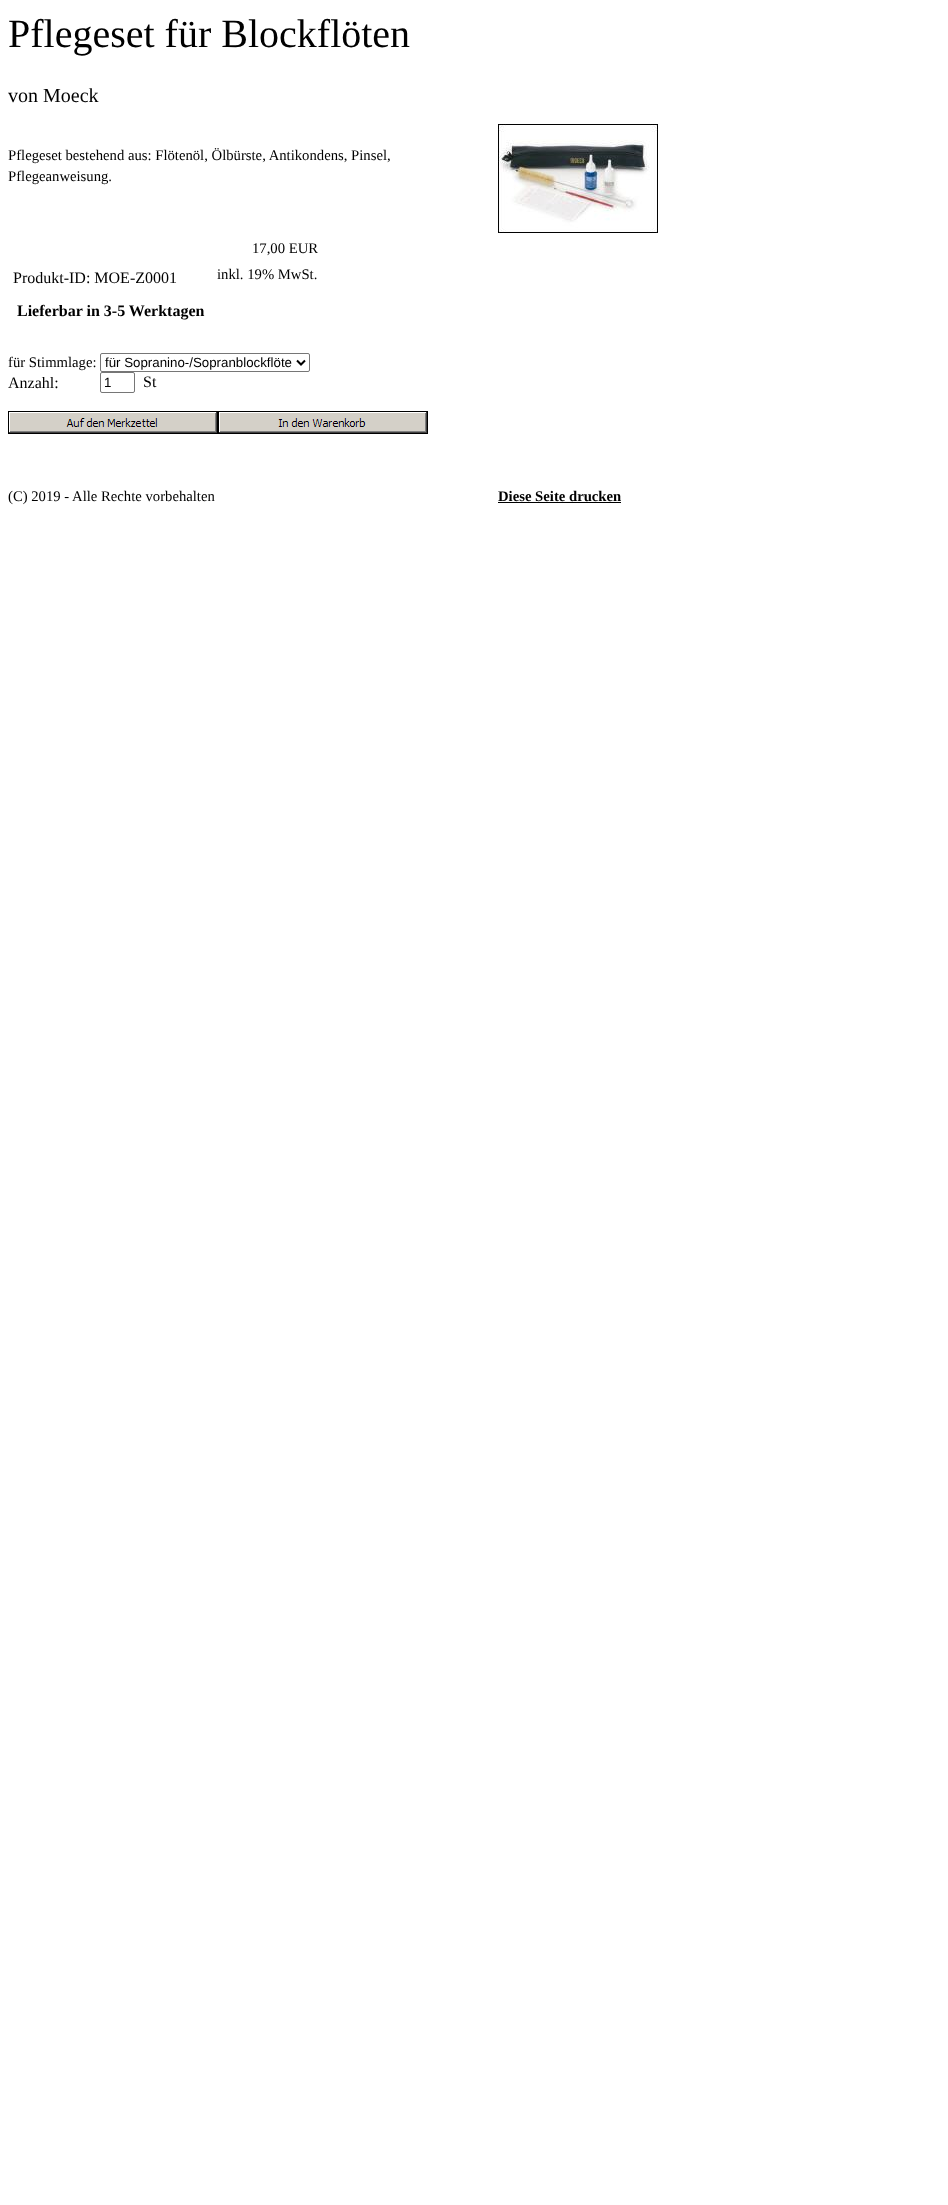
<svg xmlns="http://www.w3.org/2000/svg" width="948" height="2205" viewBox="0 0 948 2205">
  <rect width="100%" height="100%" fill="rgb(255,255,255)"/>
  <text x="8" y="47" font-family="Liberation Serif" font-size="40" fill="rgb(0,0,0)">Pflegeset für Blockflöten</text>
  <text x="8" y="102" font-family="Liberation Serif" font-size="20" fill="rgb(0,0,0)">von Moeck</text>
  <g font-family="Liberation Serif" font-size="14.7" fill="rgb(0,0,0)">
    <text>
      <tspan x="8" y="160">Pflegeset bestehend aus: Flötenöl, Ölbürste, Antikondens, Pinsel,</tspan>
      <tspan x="8" y="181">Pflegeanweisung.</tspan>
    </text>
  </g>
  <image x="498" y="124" width="160" height="109" href="pic1.png"/>
  <text x="252" y="253" font-family="Liberation Serif" font-size="14.7" fill="rgb(0,0,0)">17,00 EUR</text>
  <text x="13" y="283" font-family="Liberation Serif" font-size="16" fill="rgb(0,0,0)">Produkt-ID: MOE-Z0001</text>
  <text x="217" y="279" font-family="Liberation Serif" font-size="14.7" fill="rgb(0,0,0)">inkl. 19% MwSt.</text>
  <text x="17" y="316" font-family="Liberation Serif" font-size="16" font-weight="bold" fill="rgb(0,0,0)">Lieferbar in 3-5 Werktagen</text>
  <text x="8" y="367" font-family="Liberation Serif" font-size="14.7" fill="rgb(0,0,0)">für Stimmlage:</text>
  <rect x="100.5" y="353.5" width="209" height="18" rx="1.5" fill="none" stroke="rgb(118,118,118)"/>
  <path d="M297 360.5L301 364.5L305 360.5" fill="none" stroke="rgb(0,0,0)" stroke-width="2"/>
  <text x="105" y="367" font-family="Liberation Sans" font-size="13.3" fill="rgb(0,0,0)">für Sopranino-/Sopranblockflöte</text>
  <text x="8" y="388" font-family="Liberation Serif" font-size="16" fill="rgb(0,0,0)">Anzahl:</text>
  <rect x="100.5" y="372.5" width="34" height="20" rx="1.5" fill="none" stroke="rgb(118,118,118)"/>
  <text x="104" y="387" font-family="Liberation Sans" font-size="13.3" fill="rgb(0,0,0)">1</text>
  <text x="143" y="387" font-family="Liberation Serif" font-size="16" fill="rgb(0,0,0)">St</text>
  <image x="8" y="411" width="210" height="23" href="pic2.png"/>
  <image x="218" y="411" width="210" height="23" href="pic3.png"/>
  <text x="8" y="501" font-family="Liberation Serif" font-size="14.7" fill="rgb(0,0,0)">(C) 2019 - Alle Rechte vorbehalten</text>
  <text x="498" y="501" font-family="Liberation Serif" font-size="14.7" font-weight="bold" fill="rgb(0,0,0)">Diese Seite drucken</text>
  <rect x="498" y="502" width="123" height="1" fill="rgb(0,0,0)"/>
</svg>
